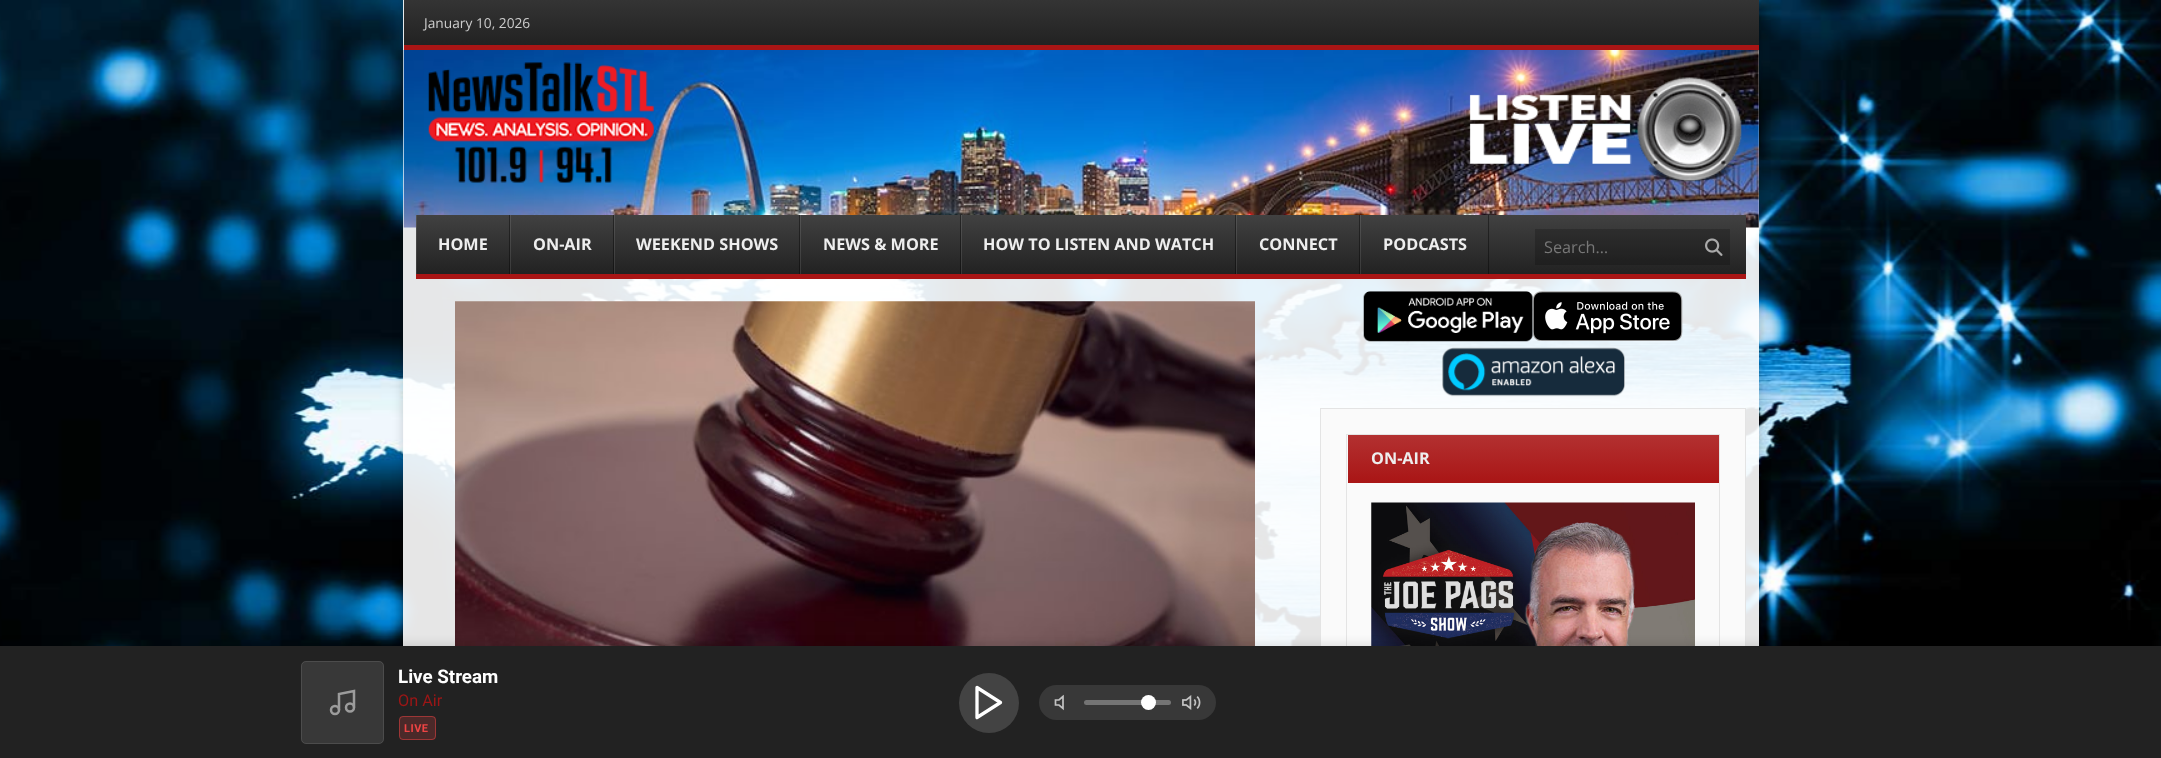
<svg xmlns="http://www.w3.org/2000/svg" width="2161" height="758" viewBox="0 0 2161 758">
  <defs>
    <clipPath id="clip1"><path d="M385 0H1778V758H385ZM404 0H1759V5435C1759 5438.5 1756.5 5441 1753 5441H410C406.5 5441 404 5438.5 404 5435Z" clip-rule="evenodd"/></clipPath>
    <linearGradient id="g1" gradientUnits="userSpaceOnUse" x1="1081" y1="0" x2="1081" y2="45"><stop offset="0" stop-color="rgb(52,52,52)"/><stop offset="1" stop-color="rgb(34,34,34)"/></linearGradient>
    <linearGradient id="g2" gradientUnits="userSpaceOnUse" x1="1081" y1="215" x2="1081" y2="274"><stop offset="0" stop-color="rgb(65,65,65)"/><stop offset="1" stop-color="rgb(34,34,34)"/></linearGradient>
    <linearGradient id="g3" gradientUnits="userSpaceOnUse" x1="1533" y1="435" x2="1533" y2="483"><stop offset="0" stop-color="rgb(179,49,49)"/><stop offset="1" stop-color="rgb(169,21,21)"/></linearGradient>
  </defs>
  <rect width="100%" height="100%" fill="rgb(255,255,255)"/>
  <image x="0" y="0" width="2161" height="646" href="pic1.png"/>
  <g clip-path="url(#clip1)">
    <rect x="404" y="0" width="1355" height="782" rx="6" fill="rgba(0,0,0,0.2)" filter="blur(6px)"/>
  </g>
  <rect x="403" y="0" width="1356" height="646" fill="rgba(255,255,255,0.9)"/>
  <rect x="404" y="0" width="1355" height="45" fill="url(#g1)"/>
  <rect x="404" y="45" width="1355" height="5" fill="rgb(169,21,21)"/>
  <text x="424" y="28" font-family="Open Sans" font-size="13.75" fill="rgb(204,204,204)">January 10, 2026</text>
  <image x="403" y="50" width="1356" height="178" href="pic2.png"/>
  <image x="428" y="62" width="226" height="121" href="pic3.png"/>
  <image x="1469" y="77" width="273" height="105" href="pic4.png"/>
  <rect x="416" y="215" width="1330" height="59" fill="url(#g2)"/>
  <rect x="416" y="274" width="1330" height="5" fill="rgb(169,21,21)"/>
  <rect x="509" y="215" width="1" height="59" fill="rgba(0,0,0,0.4)"/>
  <rect x="416" y="215" width="1" height="59" fill="rgba(255,255,255,0.1)"/>
  <text x="438" y="250" font-family="Open Sans" font-size="16.25" font-weight="bold" fill="rgb(238,238,238)">HOME</text>
  <rect x="613" y="215" width="1" height="59" fill="rgba(0,0,0,0.4)"/>
  <rect x="510" y="215" width="1" height="59" fill="rgba(255,255,255,0.1)"/>
  <text x="533" y="250" font-family="Open Sans" font-size="16.25" font-weight="bold" fill="rgb(238,238,238)">ON-AIR</text>
  <rect x="799" y="215" width="1" height="59" fill="rgba(0,0,0,0.4)"/>
  <rect x="614" y="215" width="1" height="59" fill="rgba(255,255,255,0.1)"/>
  <text x="636" y="250" font-family="Open Sans" font-size="16.25" font-weight="bold" fill="rgb(238,238,238)">WEEKEND SHOWS</text>
  <rect x="960" y="215" width="1" height="59" fill="rgba(0,0,0,0.4)"/>
  <rect x="800" y="215" width="1" height="59" fill="rgba(255,255,255,0.1)"/>
  <text x="823" y="250" font-family="Open Sans" font-size="16.25" font-weight="bold" fill="rgb(238,238,238)">NEWS &amp; MORE</text>
  <rect x="1235" y="215" width="1" height="59" fill="rgba(0,0,0,0.4)"/>
  <rect x="961" y="215" width="1" height="59" fill="rgba(255,255,255,0.1)"/>
  <text x="983" y="250" font-family="Open Sans" font-size="16.25" font-weight="bold" fill="rgb(238,238,238)">HOW TO LISTEN AND WATCH</text>
  <rect x="1359" y="215" width="1" height="59" fill="rgba(0,0,0,0.4)"/>
  <rect x="1236" y="215" width="1" height="59" fill="rgba(255,255,255,0.1)"/>
  <text x="1259" y="250" font-family="Open Sans" font-size="16.25" font-weight="bold" fill="rgb(238,238,238)">CONNECT</text>
  <rect x="1488" y="215" width="1" height="59" fill="rgba(0,0,0,0.4)"/>
  <rect x="1360" y="215" width="1" height="59" fill="rgba(255,255,255,0.1)"/>
  <text x="1383" y="250" font-family="Open Sans" font-size="16.25" font-weight="bold" fill="rgb(238,238,238)">PODCASTS</text>
  <rect x="1535" y="229" width="195" height="36" fill="rgba(0,0,0,0.2)"/>
  <text x="1544" y="253" font-family="Open Sans" font-size="16.25" fill="rgb(119,119,119)">Search…</text>
  <image x="1705" y="238" width="18" height="18" href="pic5.png"/>
  <image x="455" y="301" width="800" height="345" href="pic6.png"/>
  <image x="1363" y="291" width="170" height="51" href="pic7.png"/>
  <image x="1533" y="291" width="150" height="50" href="pic8.png"/>
  <image x="1442" y="347" width="183" height="50" href="pic9.png"/>
  <rect x="1321" y="409" width="424" height="237" fill="rgb(250,250,250)"/>
  <rect x="1320.5" y="408.5" width="425" height="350" fill="none" stroke="rgb(228,228,228)"/>
  <rect x="1346.5" y="434.5" width="373" height="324" fill="none" stroke="rgb(228,228,228)"/>
  <rect x="1348" y="435" width="371" height="48" fill="url(#g3)"/>
  <text x="1371" y="464" font-family="Open Sans" font-size="16.25" font-weight="bold" fill="rgb(238,238,238)">ON-AIR</text>
  <image x="1371" y="502" width="324" height="144" href="pic10.png"/>
  <rect x="1" y="643" width="2159" height="110" fill="rgba(0,0,0,0.1)" filter="blur(4px)"/>
  <rect x="0" y="646" width="2161" height="112" fill="rgb(34,34,34)"/>
  <rect x="301" y="661" width="83" height="83" rx="5" fill="rgb(56,56,56)"/>
  <rect x="301.5" y="661.5" width="82" height="82" rx="4.5" fill="none" stroke="rgba(255,255,255,0.1)"/>
  <path d="M339 710V694L354 691V707.5" fill="none" stroke="rgb(156,156,156)" stroke-width="2.5"/>
  <circle cx="335" cy="710" r="4" fill="none" stroke="rgb(156,156,156)" stroke-width="2.5"/>
  <circle cx="350" cy="707.5" r="4" fill="none" stroke="rgb(156,156,156)" stroke-width="2.5"/>
  <text x="398" y="683" font-family="Roboto" font-size="18.75" font-weight="bold" fill="rgb(255,255,255)">Live Stream</text>
  <text x="398" y="706" font-family="Roboto" font-size="16.25" fill="rgb(156,22,22)">On Air</text>
  <rect x="399" y="716" width="37" height="24" rx="4" fill="rgb(75,41,41)"/>
  <rect x="399.5" y="716.5" width="36" height="23" rx="3.5" fill="none" stroke="rgba(239,68,68,0.5)"/>
  <text x="404" y="732" font-family="Roboto" font-size="11" font-weight="bold" letter-spacing="0.5" fill="rgb(239,68,68)">LIVE</text>
  <circle cx="989" cy="703" r="30" fill="rgb(67,67,67)"/>
  <path d="M977 687.5L1000.5 702.5L977 717.5Z" fill="none" stroke="rgb(255,255,255)" stroke-width="3.3" stroke-linecap="round" stroke-linejoin="round"/>
  <rect x="1039" y="685" width="177" height="35" rx="17.5" fill="rgb(56,56,56)"/>
  <path d="M1063 696.5L1059 700H1055.5V705H1059L1063 708.5Z" fill="none" stroke="rgb(195,195,195)" stroke-width="1.7"/>
  <rect x="1084" y="700" width="87" height="5" rx="2.5" fill="rgb(116,116,116)"/>
  <circle cx="1148.5" cy="702.5" r="7.5" fill="rgb(255,255,255)"/>
  <image x="1182" y="695" width="19" height="15" href="pic11.png"/>
</svg>
